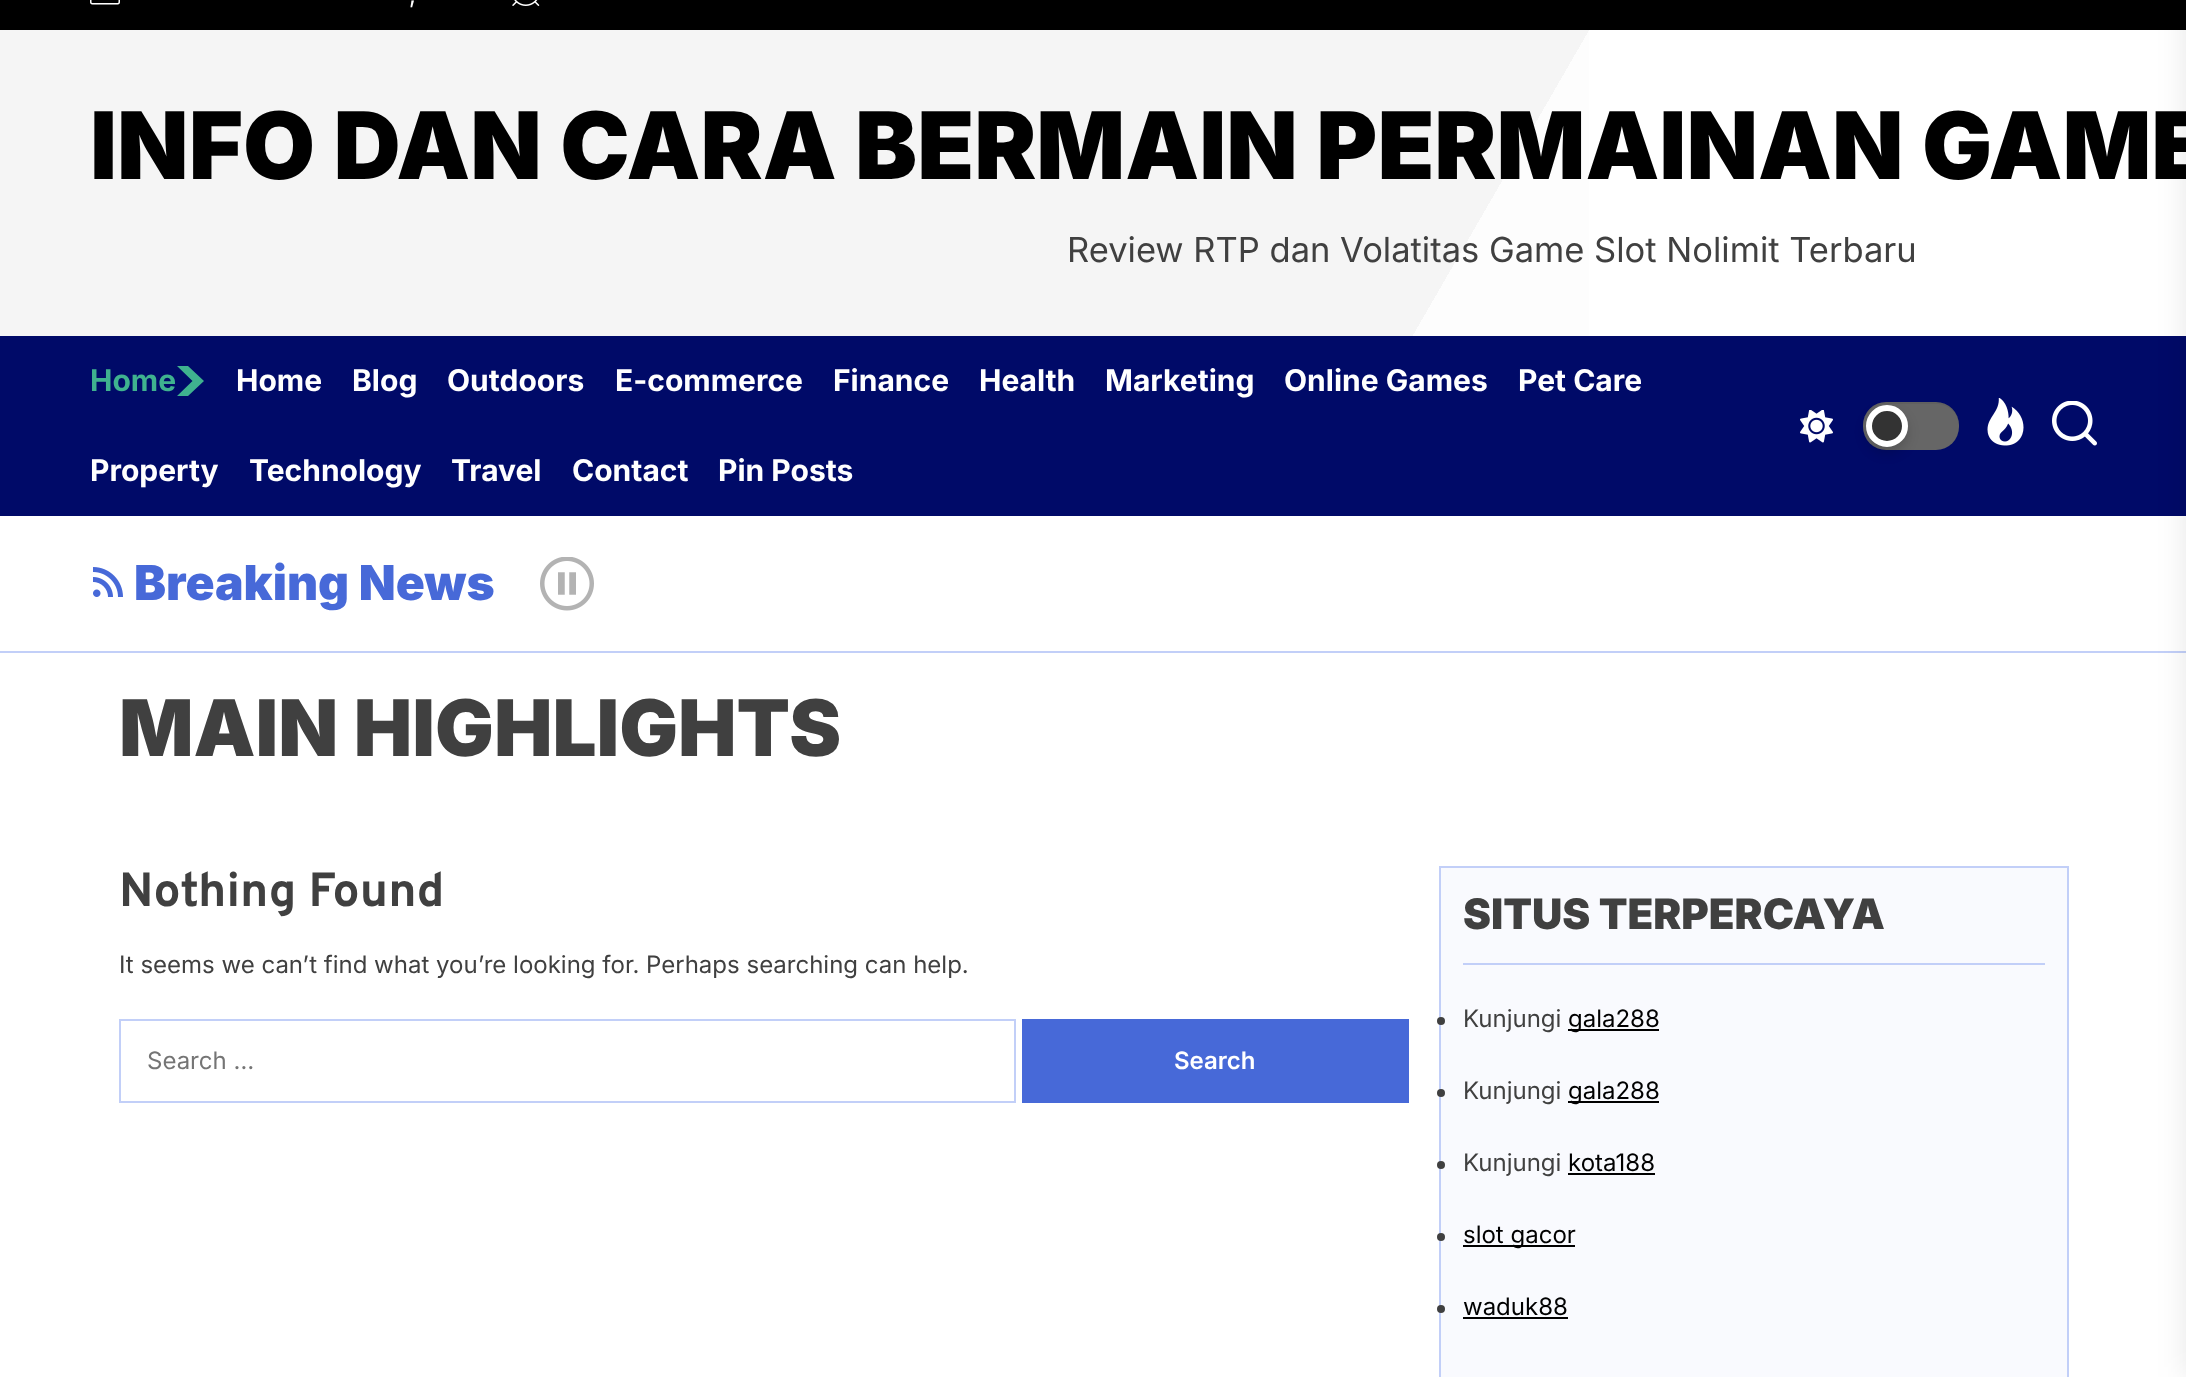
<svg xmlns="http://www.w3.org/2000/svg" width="2186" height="1377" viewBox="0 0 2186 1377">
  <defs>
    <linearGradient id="g1" gradientUnits="userSpaceOnUse" x1="2034" y1="780" x2="153" y2="-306"><stop offset="0.35" stop-color="rgb(253,253,253)"/><stop offset="0.35" stop-color="rgb(245,245,245)"/></linearGradient>
  </defs>
  <rect width="100%" height="100%" fill="rgb(255,255,255)"/>
  <rect x="0" y="30" width="1589" height="306" fill="url(#g1)"/>
  <rect x="0" y="0" width="2186" height="30" fill="rgb(0,0,0)"/>
  <image x="90" y="0" width="30" height="5" href="pic1.png"/>
  <text x="409" y="3" font-family="Inter" font-size="24" fill="rgb(255,255,255)">,</text>
  <image x="512" y="0" width="28" height="6" href="pic2.png"/>
  <text x="90" y="179" font-family="Inter" font-size="93" font-weight="900" fill="rgb(0,0,0)">INFO DAN CARA BERMAIN PERMAINAN GAME</text>
  <text x="1067" y="262" font-family="Inter" font-size="34.5" fill="rgb(64,64,64)">Review RTP dan Volatitas Game Slot Nolimit Terbaru</text>
  <rect x="0" y="336" width="2186" height="180" fill="rgb(0,10,104)"/>
  <text x="90" y="391" font-family="Inter" font-size="30" font-weight="bold" fill="rgb(63,178,143)">Home</text>
  <path d="M192.5 381L177 366H188L204 381L188 396H177Z" fill="rgb(63,178,143)"/>
  <g font-family="Inter" font-size="30" font-weight="bold" fill="rgb(255,255,255)">
    <text x="236" y="391">Home</text>
    <text x="352" y="391">Blog</text>
    <text x="447" y="391">Outdoors</text>
    <text x="615" y="391">E-commerce</text>
    <text x="833" y="391">Finance</text>
    <text x="979" y="391">Health</text>
    <text x="1105" y="391">Marketing</text>
    <text x="1284" y="391">Online Games</text>
    <text x="1518" y="391">Pet Care</text>
    <text x="90" y="481">Property</text>
    <text x="249" y="481">Technology</text>
    <text x="451" y="481">Travel</text>
    <text x="572" y="481">Contact</text>
    <text x="718" y="481">Pin Posts</text>
  </g>
  <image x="1800" y="410" width="33" height="33" href="pic3.png"/>
  <rect x="1863" y="402" width="96" height="48" rx="23" fill="rgb(102,102,102)"/>
  <path d="M1886 404H1936C1949 404 1959 414 1959 426V425C1959 412 1949 402 1936 402H1886C1873 402 1863 412 1863 425V426C1863 414 1873 404 1886 404Z" fill="rgba(0,0,0,0.05)"/>
  <rect x="1866" y="411" width="42" height="42" rx="21" fill="rgba(0,0,0,0.16)" filter="blur(6px)"/>
  <circle cx="1887" cy="426" r="18" fill="rgb(51,51,51)" stroke="rgb(255,255,255)" stroke-width="6"/>
  <image x="1987" y="398" width="37" height="48" href="pic4.png"/>
  <image x="2052" y="401" width="45" height="45" href="pic5.png"/>
  <rect x="0" y="651" width="2186" height="2" fill="rgb(194,207,248)"/>
  <image x="93" y="567" width="30" height="30" href="pic6.png"/>
  <text x="134" y="600" font-family="Inter" font-size="48" font-weight="900" fill="rgb(71,105,216)">Breaking News</text>
  <image x="540" y="557" width="54" height="54" href="pic7.png"/>
  <rect x="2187" y="0" width="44" height="1377" fill="rgba(0,0,0,0.1)" filter="blur(15px)"/>
  <text x="119" y="756" font-family="Inter" font-size="78" font-weight="900" fill="rgb(64,64,64)">MAIN HIGHLIGHTS</text>
  <text x="119" y="906" font-family="Overpass" font-size="48" font-weight="bold" fill="rgb(64,64,64)">Nothing Found</text>
  <text x="119" y="973" font-family="Inter" font-size="24" fill="rgb(64,64,64)">It seems we can’t find what you’re looking for. Perhaps searching can help.</text>
  <rect x="120" y="1020" width="895" height="82" fill="none" stroke="rgb(194,207,248)" stroke-width="2"/>
  <text x="147" y="1069" font-family="Inter" font-size="24" fill="rgb(117,117,117)">Search …</text>
  <rect x="1022" y="1019" width="387" height="84" fill="rgb(71,105,216)"/>
  <text x="1174" y="1069" font-family="Inter" font-size="24" font-weight="600" fill="rgb(255,255,255)">Search</text>
  <rect x="1440" y="867" width="628" height="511" fill="rgb(249,250,254)" stroke="rgb(194,207,248)" stroke-width="2"/>
  <rect x="1463" y="963" width="582" height="2" fill="rgb(194,207,248)"/>
  <text x="1463" y="929" font-family="Inter" font-size="42" font-weight="900" fill="rgb(64,64,64)">SITUS TERPERCAYA</text>
  <circle cx="1441" cy="1021" r="4" fill="rgb(64,64,64)"/>
  <text x="1463" y="1027" font-family="Inter" font-size="24" fill="rgb(64,64,64)">Kunjungi</text>
  <rect x="1568" y="1029" width="91" height="2" fill="rgb(0,0,0)"/>
  <text x="1568" y="1027" font-family="Inter" font-size="24" fill="rgb(0,0,0)">gala288</text>
  <circle cx="1441" cy="1093" r="4" fill="rgb(64,64,64)"/>
  <text x="1463" y="1099" font-family="Inter" font-size="24" fill="rgb(64,64,64)">Kunjungi</text>
  <rect x="1568" y="1101" width="91" height="2" fill="rgb(0,0,0)"/>
  <text x="1568" y="1099" font-family="Inter" font-size="24" fill="rgb(0,0,0)">gala288</text>
  <circle cx="1441" cy="1165" r="4" fill="rgb(64,64,64)"/>
  <text x="1463" y="1171" font-family="Inter" font-size="24" fill="rgb(64,64,64)">Kunjungi</text>
  <text x="1568" y="1171" font-family="Inter" font-size="24" fill="rgb(0,0,0)">kota188</text>
  <rect x="1568" y="1173" width="87" height="2" fill="rgb(0,0,0)"/>
  <circle cx="1441" cy="1237" r="4" fill="rgb(64,64,64)"/>
  <rect x="1463" y="1245" width="112" height="2" fill="rgb(0,0,0)"/>
  <text x="1463" y="1243" font-family="Inter" font-size="24" fill="rgb(0,0,0)">slot gacor</text>
  <circle cx="1441" cy="1309" r="4" fill="rgb(64,64,64)"/>
  <text x="1463" y="1315" font-family="Inter" font-size="24" fill="rgb(0,0,0)">waduk88</text>
  <rect x="1463" y="1317" width="105" height="2" fill="rgb(0,0,0)"/>
</svg>
